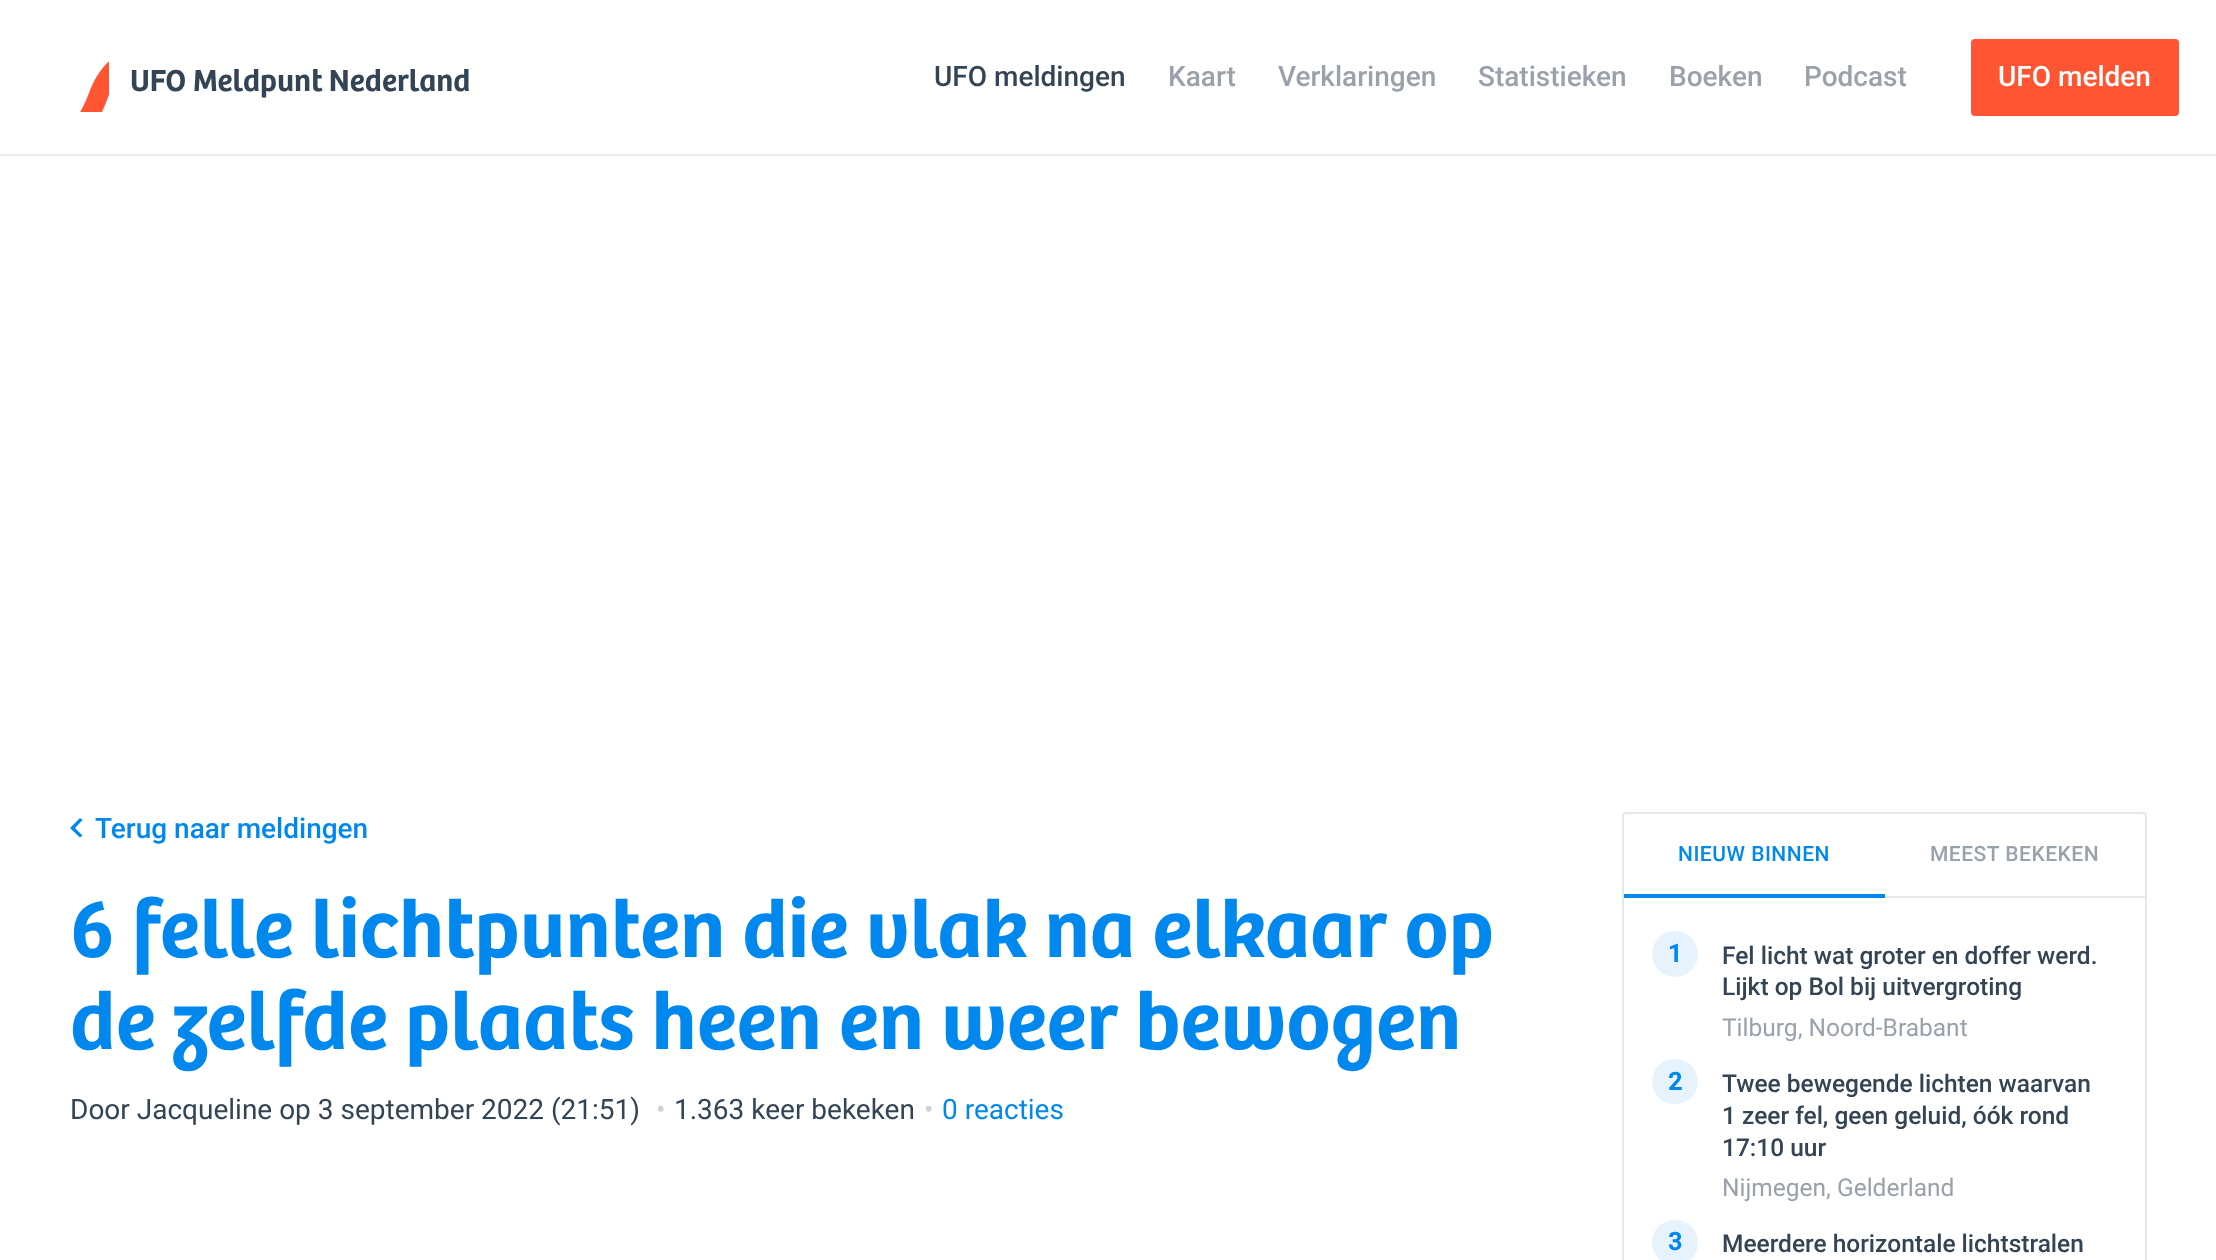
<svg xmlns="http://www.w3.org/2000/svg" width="2216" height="1260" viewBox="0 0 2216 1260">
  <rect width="100%" height="100%" fill="rgb(255,255,255)"/>
  <rect x="0" y="154" width="2216" height="2" fill="rgb(235,235,235)"/>
  <image x="80" y="61" width="29" height="51" href="pic1.png"/>
  <text x="130" y="91" font-family="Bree" font-size="31.5" font-weight="600" fill="rgb(51,68,85)">UFO Meldpunt Nederland</text>
  <text x="934" y="86" font-family="Roboto" font-size="28" font-weight="500" fill="rgb(51,68,85)">UFO meldingen</text>
  <g font-family="Roboto" font-size="28" font-weight="500" fill="rgb(153,161,170)">
    <text x="1168" y="86">Kaart</text>
    <text x="1278" y="86">Verklaringen</text>
    <text x="1478" y="86">Statistieken</text>
    <text x="1669" y="86">Boeken</text>
    <text x="1804" y="86">Podcast</text>
  </g>
  <rect x="1971" y="39" width="208" height="77" rx="4" fill="rgb(255,85,51)"/>
  <text x="1998" y="86" font-family="Roboto" font-size="28" font-weight="500" fill="rgb(255,255,255)">UFO melden</text>
  <path d="M80 837.5L70 828L80 818L82.5 820L75 828L82.5 835.5" fill="rgb(0,136,238)"/>
  <text x="95" y="838" font-family="Roboto" font-size="28" font-weight="500" fill="rgb(0,136,238)">Terug naar meldingen</text>
  <g font-family="Bree" font-size="84" font-weight="600" fill="rgb(0,136,238)">
    <text>
      <tspan x="70" y="957">6 felle lichtpunten die vlak na elkaar op</tspan>
      <tspan x="70" y="1049">de zelfde plaats heen en weer bewogen</tspan>
    </text>
  </g>
  <text x="70" y="1119" font-family="Roboto" font-size="28" fill="rgb(51,68,85)">Door Jacqueline op 3 september 2022 (21:51)</text>
  <text x="656" y="1119" font-family="Roboto" font-size="28" fill="rgb(204,208,212)">•</text>
  <text x="674" y="1119" font-family="Roboto" font-size="28" fill="rgb(51,68,85)">1.363 keer bekeken</text>
  <text x="924" y="1119" font-family="Roboto" font-size="28" fill="rgb(204,208,212)">•</text>
  <text x="942" y="1119" font-family="Roboto" font-size="28" fill="rgb(0,136,238)">0 reacties</text>
  <rect x="1623" y="813" width="523" height="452" rx="3" fill="none" stroke="rgb(229,231,234)" stroke-width="2"/>
  <rect x="1885" y="896" width="261" height="2" fill="rgb(229,231,234)"/>
  <text x="1678" y="861" font-family="Roboto" font-size="21" font-weight="500" letter-spacing="0.5" fill="rgb(0,136,238)">NIEUW BINNEN</text>
  <rect x="1624" y="894" width="261" height="4" fill="rgb(0,136,238)"/>
  <text x="1930" y="861" font-family="Roboto" font-size="21" font-weight="500" letter-spacing="0.5" fill="rgb(153,161,170)">MEEST BEKEKEN</text>
  <circle cx="1675" cy="954" r="23" fill="rgb(230,243,253)"/>
  <text x="1668" y="962" font-family="Roboto" font-size="24.5" font-weight="bold" fill="rgb(0,136,238)">1</text>
  <g font-family="Roboto" font-size="24.5" font-weight="500" fill="rgb(51,68,85)">
    <text>
      <tspan x="1722" y="964">Fel licht wat groter en doffer werd.</tspan>
      <tspan x="1722" y="995">Lijkt op Bol bij uitvergroting</tspan>
    </text>
  </g>
  <text x="1722" y="1036" font-family="Roboto" font-size="24.5" fill="rgb(153,161,170)">Tilburg, Noord-Brabant</text>
  <rect x="1652" y="1059" width="46" height="45" rx="22.5" fill="rgb(230,243,253)"/>
  <text x="1668" y="1090" font-family="Roboto" font-size="24.5" font-weight="bold" fill="rgb(0,136,238)">2</text>
  <g font-family="Roboto" font-size="24.5" font-weight="500" fill="rgb(51,68,85)">
    <text>
      <tspan x="1722" y="1092">Twee bewegende lichten waarvan</tspan>
      <tspan x="1722" y="1124">1 zeer fel, geen geluid, óók rond</tspan>
      <tspan x="1722" y="1156">17:10 uur</tspan>
    </text>
  </g>
  <text x="1722" y="1196" font-family="Roboto" font-size="24.5" fill="rgb(153,161,170)">Nijmegen, Gelderland</text>
  <rect x="1652" y="1220" width="46" height="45" rx="22.5" fill="rgb(230,243,253)"/>
  <text x="1668" y="1250" font-family="Roboto" font-size="24.5" font-weight="bold" fill="rgb(0,136,238)">3</text>
  <text x="1722" y="1252" font-family="Roboto" font-size="24.5" font-weight="500" fill="rgb(51,68,85)">Meerdere horizontale lichtstralen</text>
</svg>
